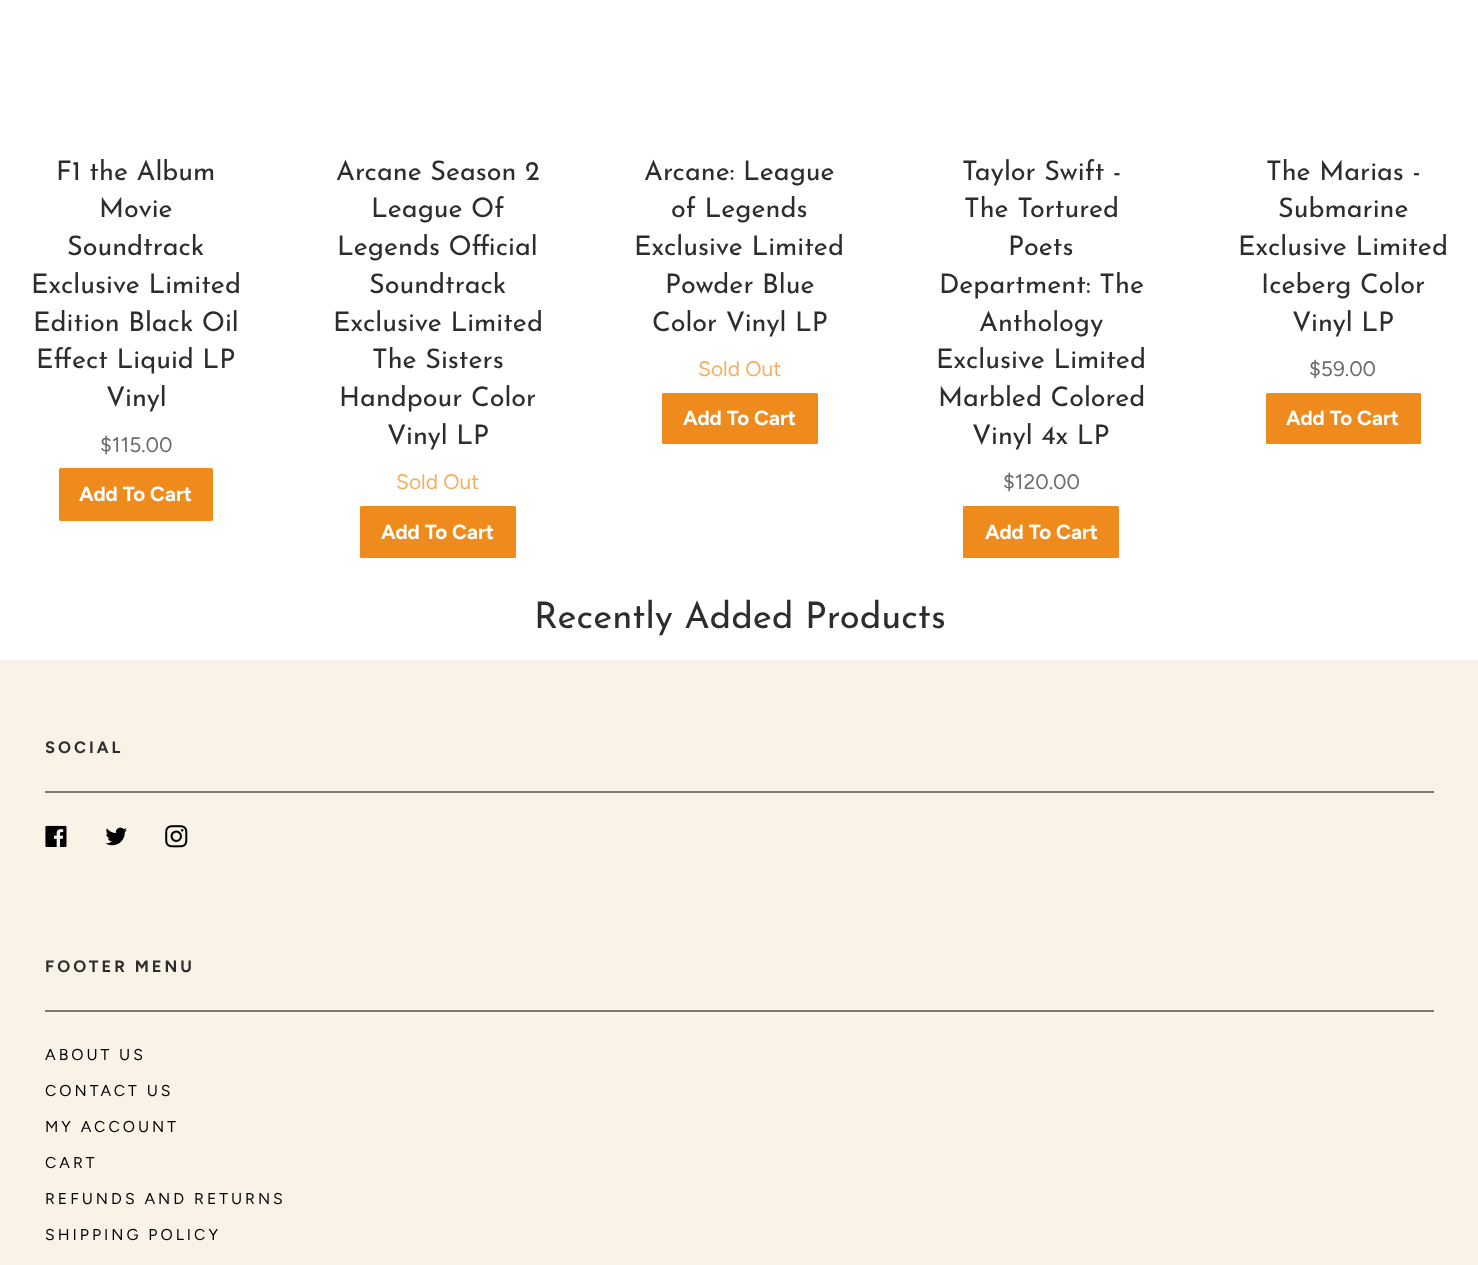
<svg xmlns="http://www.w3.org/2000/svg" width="1478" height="1265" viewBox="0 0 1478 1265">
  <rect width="100%" height="100%" fill="rgb(255,255,255)"/>
  <g font-family="Josefin Sans" font-size="27" fill="rgb(45,45,45)">
    <text x="56" y="180">F1 the Album</text>
    <text x="99" y="217">Movie</text>
    <text x="67" y="255">Soundtrack</text>
    <text x="31" y="293">Exclusive Limited</text>
    <text x="33" y="331">Edition Black Oil</text>
    <text x="36" y="368">Effect Liquid LP</text>
    <text x="106" y="406">Vinyl</text>
  </g>
  <text x="100" y="452" font-family="Figtree" font-size="21" fill="rgb(108,108,108)">$115.00</text>
  <rect x="59" y="468" width="154" height="53" rx="1.5" fill="rgb(239,139,28)"/>
  <text x="79" y="501" font-family="Figtree" font-size="20.5" font-weight="bold" fill="rgb(255,255,255)">Add To Cart</text>
  <g font-family="Josefin Sans" font-size="27" fill="rgb(45,45,45)">
    <text x="336" y="180">Arcane Season 2</text>
    <text x="371" y="217">League Of</text>
    <text x="337" y="255">Legends Official</text>
    <text x="369" y="293">Soundtrack</text>
    <text x="333" y="331">Exclusive Limited</text>
    <text x="372" y="368">The Sisters</text>
    <text x="339" y="406">Handpour Color</text>
    <text x="387" y="444">Vinyl LP</text>
  </g>
  <text x="396" y="489" font-family="Figtree" font-size="21" fill="rgb(244,174,96)">Sold Out</text>
  <rect x="360" y="506" width="156" height="52" rx="1.5" fill="rgb(239,139,28)"/>
  <text x="381" y="539" font-family="Figtree" font-size="20.5" font-weight="bold" fill="rgb(255,255,255)">Add To Cart</text>
  <g font-family="Josefin Sans" font-size="27" fill="rgb(45,45,45)">
    <text x="644" y="180">Arcane: League</text>
    <text x="671" y="217">of Legends</text>
    <text x="634" y="255">Exclusive Limited</text>
    <text x="665" y="293">Powder Blue</text>
    <text x="652" y="331">Color Vinyl LP</text>
  </g>
  <text x="698" y="376" font-family="Figtree" font-size="21" fill="rgb(244,174,96)">Sold Out</text>
  <rect x="662" y="393" width="156" height="51" rx="1.5" fill="rgb(239,139,28)"/>
  <text x="683" y="425" font-family="Figtree" font-size="20.5" font-weight="bold" fill="rgb(255,255,255)">Add To Cart</text>
  <g font-family="Josefin Sans" font-size="27" fill="rgb(45,45,45)">
    <text x="962" y="180">Taylor Swift -</text>
    <text x="964" y="217">The Tortured</text>
    <text x="1008" y="255">Poets</text>
    <text x="939" y="293">Department: The</text>
    <text x="979" y="331">Anthology</text>
    <text x="936" y="368">Exclusive Limited</text>
    <text x="938" y="406">Marbled Colored</text>
    <text x="972" y="444">Vinyl 4x LP</text>
  </g>
  <text x="1003" y="489" font-family="Figtree" font-size="21" fill="rgb(108,108,108)">$120.00</text>
  <rect x="963" y="506" width="156" height="52" rx="1.5" fill="rgb(239,139,28)"/>
  <text x="985" y="539" font-family="Figtree" font-size="20.5" font-weight="bold" fill="rgb(255,255,255)">Add To Cart</text>
  <g font-family="Josefin Sans" font-size="27" fill="rgb(45,45,45)">
    <text x="1266" y="180">The Marias -</text>
    <text x="1278" y="217">Submarine</text>
    <text x="1238" y="255">Exclusive Limited</text>
    <text x="1261" y="293">Iceberg Color</text>
    <text x="1292" y="331">Vinyl LP</text>
  </g>
  <text x="1309" y="376" font-family="Figtree" font-size="21" fill="rgb(108,108,108)">$59.00</text>
  <rect x="1266" y="393" width="155" height="51" rx="1.5" fill="rgb(239,139,28)"/>
  <text x="1286" y="425" font-family="Figtree" font-size="20.5" font-weight="bold" fill="rgb(255,255,255)">Add To Cart</text>
  <text x="534" y="628" font-family="Josefin Sans" font-size="36.5" fill="rgb(45,45,45)">Recently Added Products</text>
  <rect x="0" y="660" width="1478" height="605" fill="rgb(249,243,231)"/>
  <text x="45" y="753" font-family="Figtree" font-size="16.5" font-weight="bold" letter-spacing="3" fill="rgb(45,45,45)">SOCIAL</text>
  <rect x="45" y="791" width="1389" height="2" fill="rgb(125,122,116)"/>
  <image x="45" y="825" width="22" height="22" href="pic1.png"/>
  <image x="105" y="827" width="22" height="19" href="pic2.png"/>
  <image x="165" y="825" width="23" height="23" href="pic3.png"/>
  <text x="45" y="972" font-family="Figtree" font-size="16.5" font-weight="bold" letter-spacing="3" fill="rgb(45,45,45)">FOOTER MENU</text>
  <rect x="45" y="1010" width="1389" height="2" fill="rgb(125,122,116)"/>
  <g font-family="Figtree" font-size="15.75" letter-spacing="3" fill="rgb(0,0,0)">
    <text x="45" y="1060">ABOUT US</text>
    <text x="45" y="1096">CONTACT US</text>
    <text x="45" y="1132">MY ACCOUNT</text>
    <text x="45" y="1168">CART</text>
    <text x="45" y="1204">REFUNDS AND RETURNS</text>
    <text x="45" y="1240">SHIPPING POLICY</text>
  </g>
</svg>
